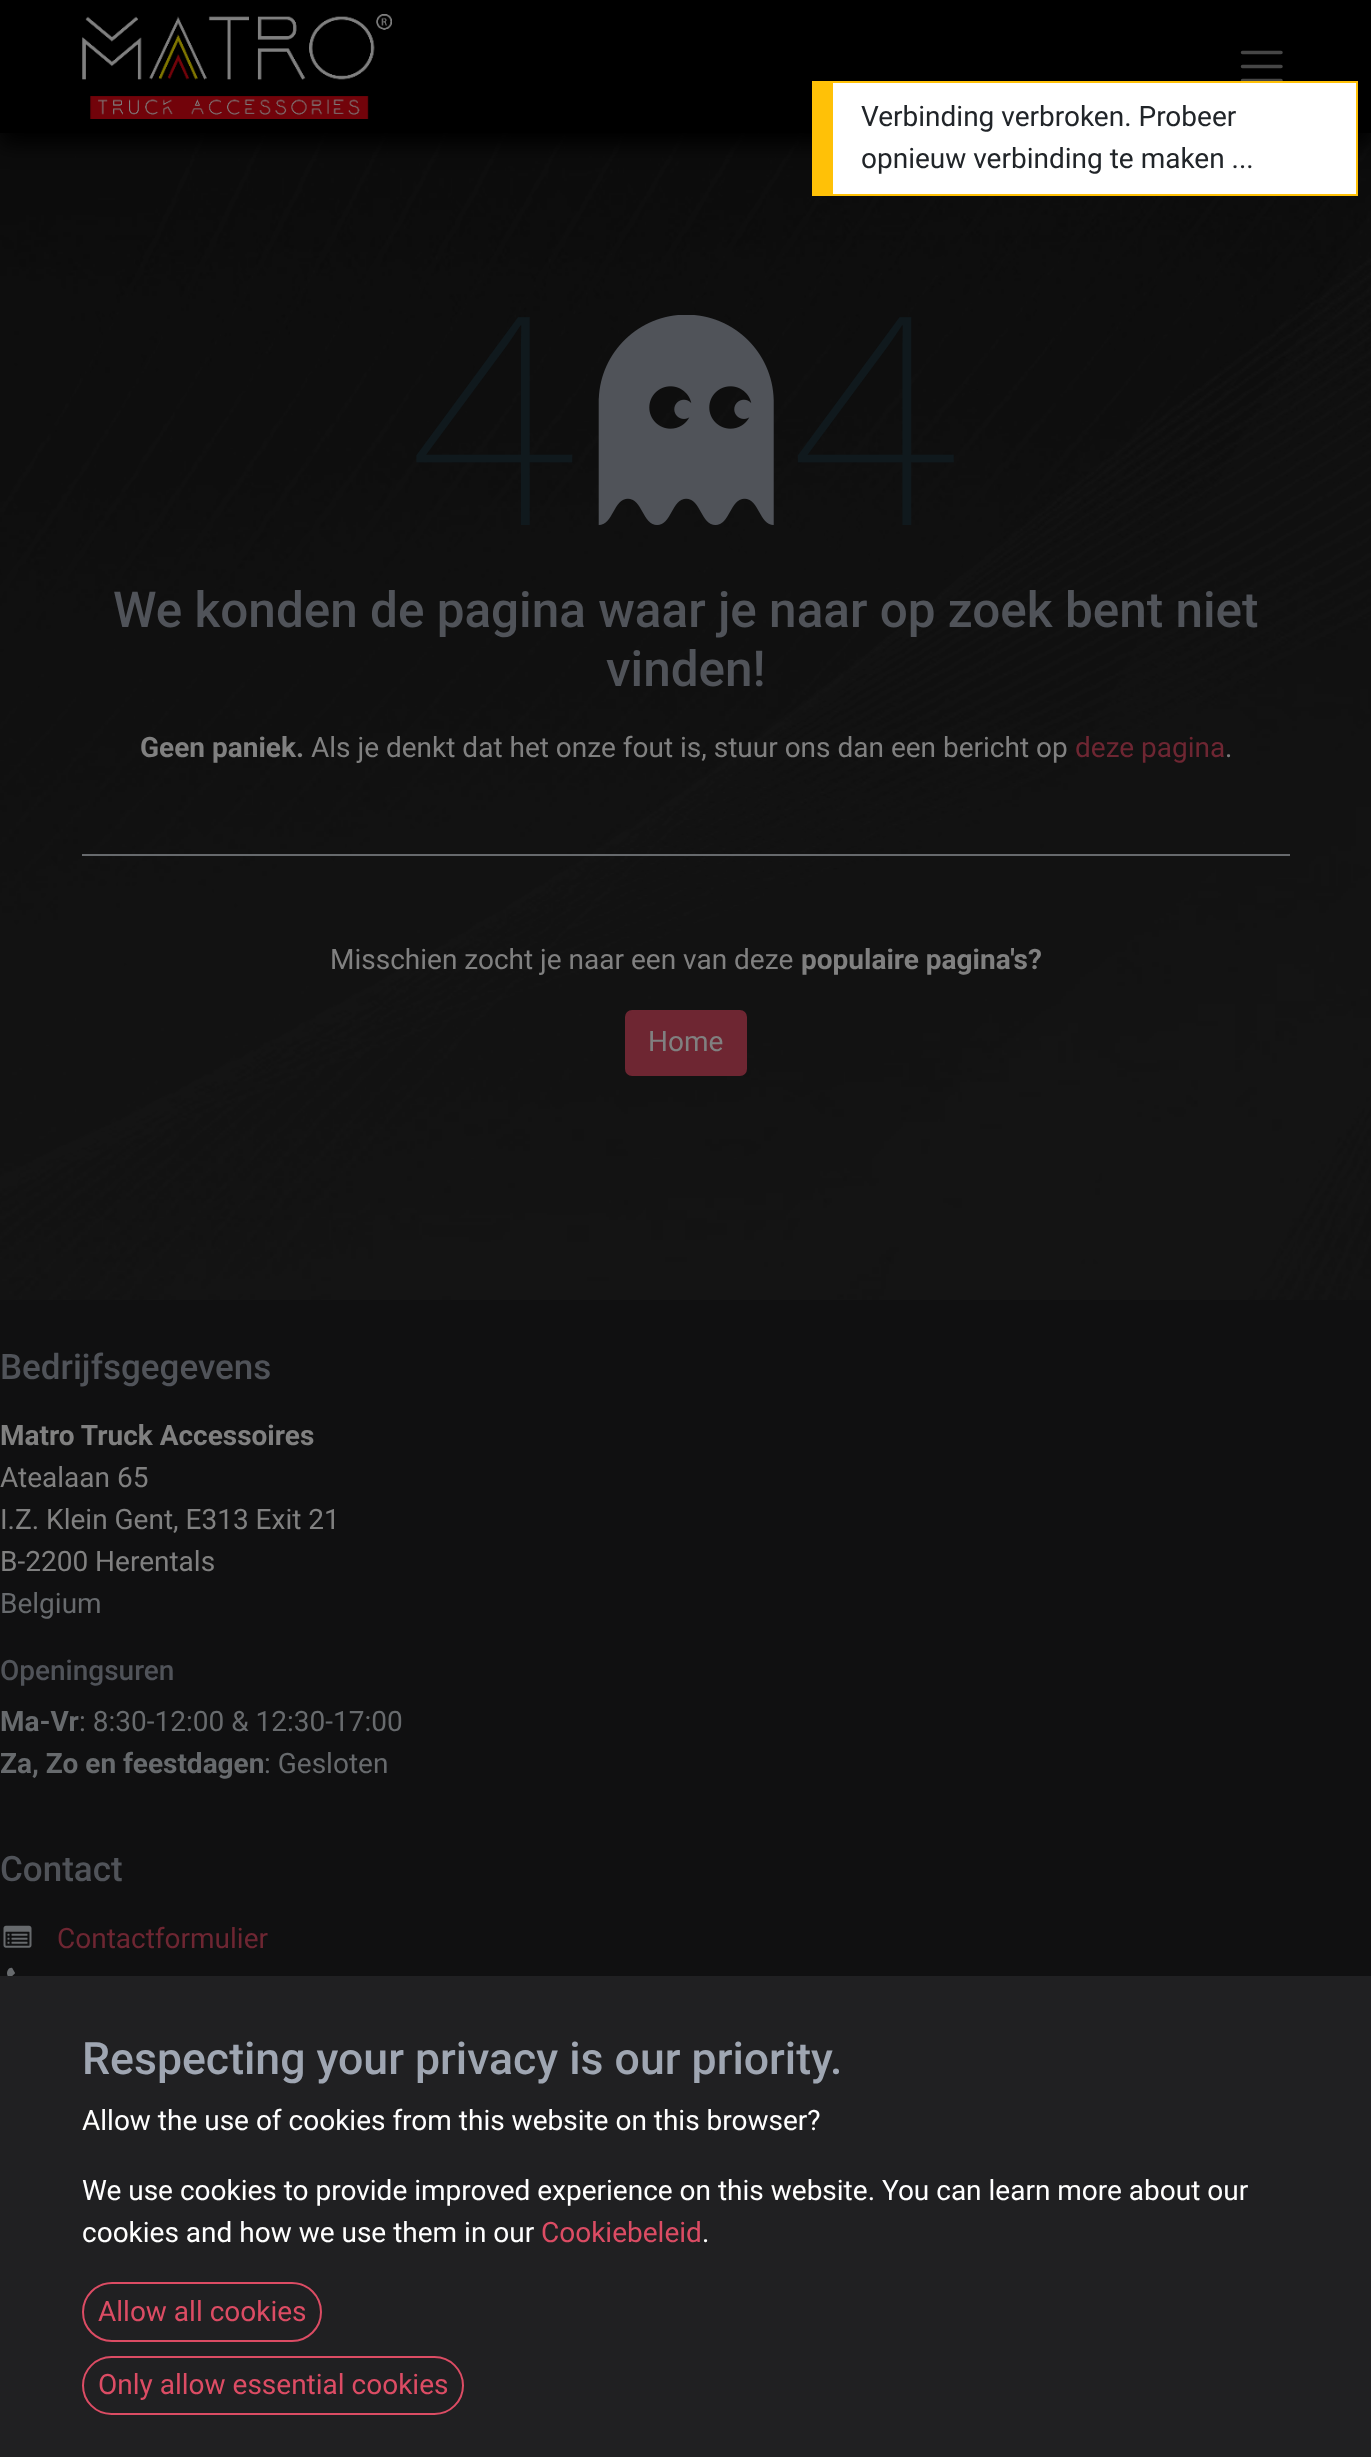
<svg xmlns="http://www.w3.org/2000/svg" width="1371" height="2457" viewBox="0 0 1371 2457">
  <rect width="100%" height="100%" fill="rgb(255,255,255)"/>
  <image x="0" y="133" width="1371" height="1167" href="pic1.png"/>
  <rect x="0" y="11" width="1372" height="133" fill="rgb(0,0,0)" filter="blur(10.5px)"/>
  <rect x="0" y="0" width="1371" height="133" fill="rgb(0,0,0)"/>
  <rect x="833" y="83" width="523" height="111" fill="rgb(255,255,255)"/>
  <path d="M1242.5 52.5H1281M1242.5 66.5H1281M1242.5 80.5H1281" fill="none" stroke="rgb(70,70,70)" stroke-width="3.5" stroke-linecap="round"/>
  <rect x="833" y="81" width="525" height="2" fill="rgb(255,193,7)"/>
  <rect x="1356" y="81" width="2" height="115" fill="rgb(255,193,7)"/>
  <rect x="833" y="194" width="525" height="2" fill="rgb(255,193,7)"/>
  <rect x="812" y="81" width="21" height="115" fill="rgb(255,193,7)"/>
  <g font-family="Roboto" font-size="28" fill="rgb(33,37,41)">
    <text>
      <tspan x="861" y="126">Verbinding verbroken. Probeer</tspan>
      <tspan x="861" y="168">opnieuw verbinding te maken ...</tspan>
    </text>
  </g>
  <image x="82" y="14" width="310" height="105" href="pic2.png"/>
  <image x="416" y="315" width="538" height="210" href="pic3.png"/>
  <g font-family="Roboto" font-size="49.45" font-weight="500" fill="rgb(80,83,89)">
    <text x="113" y="627">We konden de pagina waar je naar op zoek bent niet</text>
    <text x="606" y="686">vinden!</text>
  </g>
  <text x="140" y="757" font-family="Roboto" font-size="28" font-weight="bold" fill="rgb(128,128,128)">Geen paniek.</text>
  <text x="311" y="757" font-family="Roboto" font-size="28" fill="rgb(128,128,128)">Als je denkt dat het onze fout is, stuur ons dan een bericht op</text>
  <text x="1075" y="757" font-family="Roboto" font-size="28" fill="rgb(110,38,50)">deze pagina</text>
  <text x="1225" y="757" font-family="Roboto" font-size="28" fill="rgb(128,128,128)">.</text>
  <rect x="82" y="854" width="1208" height="2" fill="rgb(103,106,109)"/>
  <text x="330" y="969" font-family="Roboto" font-size="28" fill="rgb(128,128,128)">Misschien zocht je naar een van deze</text>
  <text x="801" y="969" font-family="Roboto" font-size="28" font-weight="bold" fill="rgb(128,128,128)">populaire pagina's?</text>
  <rect x="626" y="1011" width="120" height="64" rx="6" fill="rgb(110,38,50)" stroke="rgb(110,38,50)" stroke-width="2"/>
  <text x="648" y="1051" font-family="Roboto" font-size="28" fill="rgb(128,128,128)">Home</text>
  <rect x="0" y="1300" width="1371" height="676" fill="rgb(16,16,17)"/>
  <text x="0" y="1379" font-family="Roboto" font-size="35" font-weight="500" fill="rgb(80,83,89)">Bedrijfsgegevens</text>
  <text x="0" y="1445" font-family="Roboto" font-size="28" font-weight="bold" fill="rgb(128,128,128)">Matro Truck Accessoires</text>
  <g font-family="Roboto" font-size="28" fill="rgb(128,128,128)">
    <text>
      <tspan x="0" y="1487">Atealaan 65</tspan>
      <tspan x="0" y="1529">I.Z. Klein Gent, E313 Exit 21</tspan>
      <tspan x="0" y="1571">B-2200 Herentals</tspan>
    </text>
  </g>
  <text x="0" y="1613" font-family="Roboto" font-size="28" fill="rgb(103,106,109)">Belgium</text>
  <text x="0" y="1680" font-family="Roboto" font-size="28" font-weight="500" fill="rgb(80,83,89)">Openingsuren</text>
  <text x="0" y="1731" font-family="Roboto" font-size="28" font-weight="bold" fill="rgb(103,106,109)">Ma-Vr</text>
  <text x="79" y="1731" font-family="Roboto" font-size="28" fill="rgb(103,106,109)">: 8:30-12:00 &amp; 12:30-17:00</text>
  <text x="0" y="1773" font-family="Roboto" font-size="28" font-weight="bold" fill="rgb(103,106,109)">Za, Zo en feestdagen</text>
  <text x="264" y="1773" font-family="Roboto" font-size="28" fill="rgb(103,106,109)">: Gesloten</text>
  <text x="0" y="1881" font-family="Roboto" font-size="35" font-weight="500" fill="rgb(80,83,89)">Contact</text>
  <image x="3" y="1925" width="29" height="23" href="pic4.png"/>
  <text x="57" y="1948" font-family="Roboto" font-size="28" fill="rgb(110,38,50)">Contactformulier</text>
  <image x="7" y="1967" width="8" height="9" href="pic5.png"/>
  <rect x="0" y="1976" width="1371" height="481" fill="rgb(32,32,34)"/>
  <text x="82" y="2074" font-family="Roboto" font-size="44.6" font-weight="500" fill="rgb(159,166,178)">Respecting your privacy is our priority.</text>
  <g font-family="Roboto" font-size="28" fill="rgb(255,255,255)">
    <text x="82" y="2130">Allow the use of cookies from this website on this browser?</text>
    <text>
      <tspan x="82" y="2200">We use cookies to provide improved experience on this website. You can learn more about our</tspan>
      <tspan x="82" y="2242">cookies and how we use them in our</tspan>
    </text>
  </g>
  <text x="541" y="2242" font-family="Roboto" font-size="28" fill="rgb(220,76,100)">Cookiebeleid</text>
  <text x="702" y="2242" font-family="Roboto" font-size="28" fill="rgb(255,255,255)">.</text>
  <rect x="83" y="2283" width="238" height="58" rx="29" fill="none" stroke="rgb(220,76,100)" stroke-width="2"/>
  <text x="98" y="2321" font-family="Roboto" font-size="28" fill="rgb(220,76,100)">Allow all cookies</text>
  <rect x="83" y="2357" width="380" height="57" rx="28.5" fill="none" stroke="rgb(220,76,100)" stroke-width="2"/>
  <text x="98" y="2394" font-family="Roboto" font-size="28" fill="rgb(220,76,100)">Only allow essential cookies</text>
</svg>
